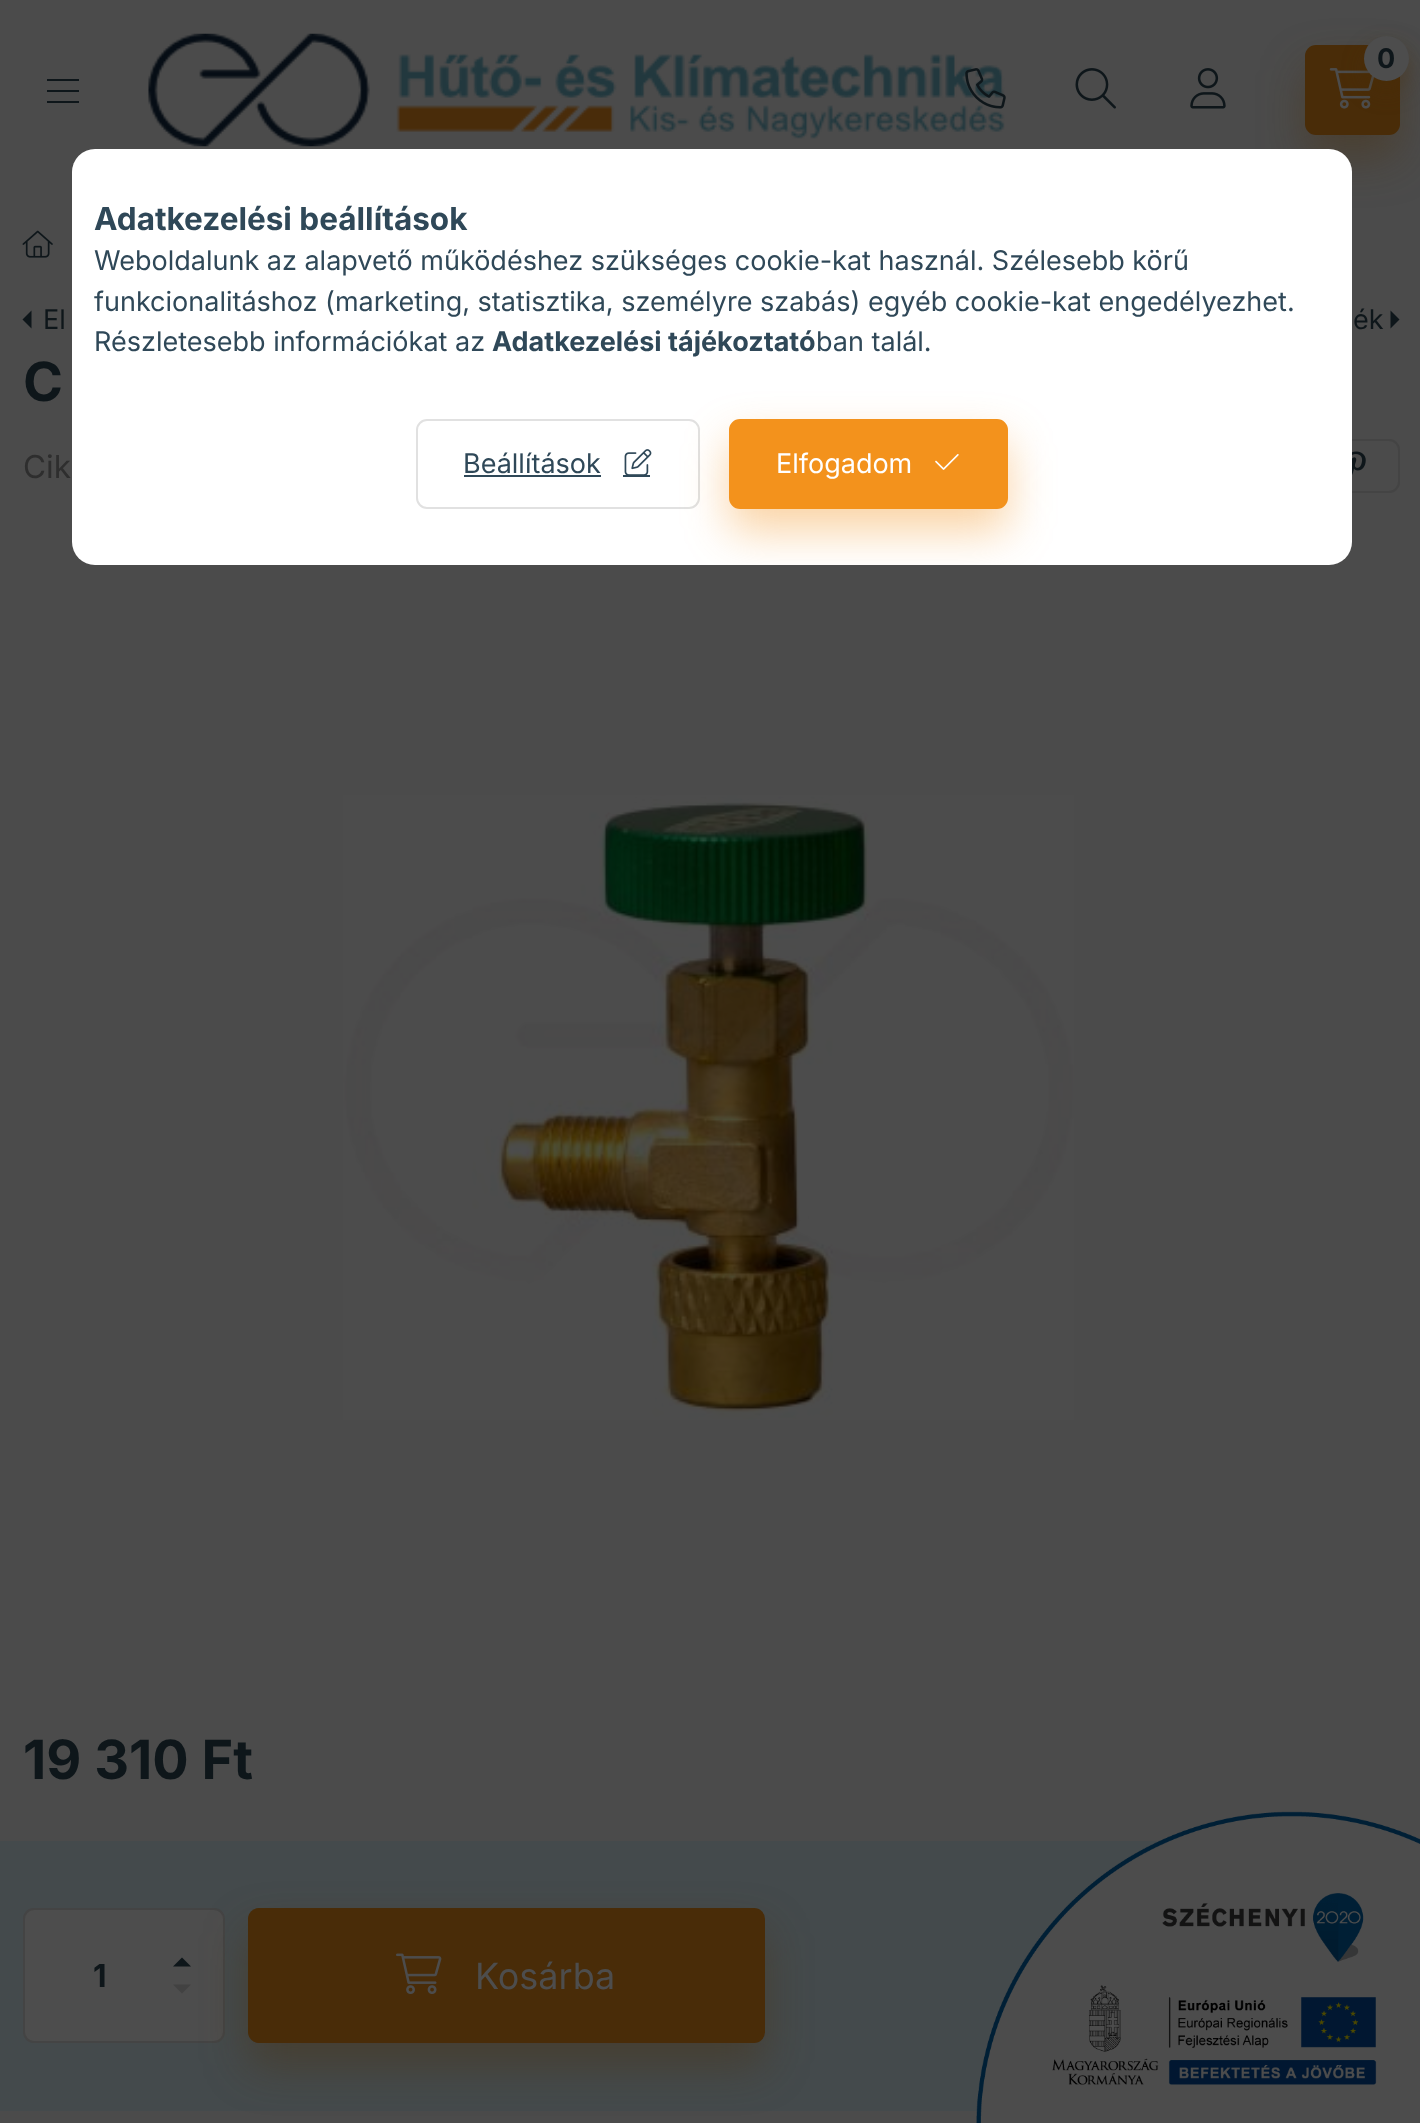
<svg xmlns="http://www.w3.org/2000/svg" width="1420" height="2123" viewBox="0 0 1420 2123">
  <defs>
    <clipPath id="clip1"><rect x="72" y="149" width="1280" height="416" rx="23"/></clipPath>
  </defs>
  <rect width="100%" height="100%" fill="rgb(75,75,75)"/>
  <image x="148" y="33" width="857" height="114" href="pic1.png"/>
  <rect x="47" y="79" width="32" height="2" fill="rgb(14,22,26)"/>
  <rect x="47" y="90" width="32" height="2" fill="rgb(14,22,26)"/>
  <rect x="47" y="101" width="32" height="2" fill="rgb(14,22,26)"/>
  <image x="965" y="68" width="41" height="41" href="pic2.png"/>
  <rect x="1305" y="68" width="95" height="90" rx="11" fill="rgba(73,44,8,0.4)" filter="blur(22.5px)"/>
  <rect x="1305" y="45" width="95" height="90" rx="11" fill="rgb(73,44,8)"/>
  <image x="1329" y="68" width="46" height="41" href="pic3.png"/>
  <rect x="1364" y="47" width="45" height="45" rx="22.5" fill="rgba(73,44,8,0.4)" filter="blur(11px)"/>
  <circle cx="1386.5" cy="58.5" r="22.5" fill="rgb(77,77,77)"/>
  <text x="1377" y="68" font-family="Inter" font-size="27" font-weight="bold" fill="rgb(14,22,26)">0</text>
  <image x="1075" y="68" width="41" height="41" href="pic4.png"/>
  <image x="1190" y="68" width="36" height="41" href="pic5.png"/>
  <image x="22" y="230" width="31" height="28" href="pic6.png"/>
  <path d="M31.5 328.5V310.5L22.5 319.5Z" fill="rgb(14,22,26)"/>
  <g font-family="Inter" font-size="27" fill="rgb(14,22,26)">
    <text x="43" y="329">El</text>
    <text x="1353" y="329">ék</text>
  </g>
  <path d="M1390.5 328.5V310.5L1399.5 319.5Z" fill="rgb(14,22,26)"/>
  <text x="23" y="401" font-family="Inter" font-size="54" font-weight="bold" fill="rgb(14,22,26)">C</text>
  <text x="23" y="478" font-family="Inter" font-size="31.5" fill="rgb(46,46,46)">Cik</text>
  <rect x="1311" y="440" width="88" height="52" rx="10" fill="none" stroke="rgb(68,68,68)" stroke-width="2"/>
  <image x="1352" y="451" width="14" height="24" href="pic7.png"/>
  <image x="343" y="795" width="731" height="625" href="pic8.png"/>
  <text x="23" y="1779" font-family="Inter" font-size="54" font-weight="bold" fill="rgb(14,22,26)">19 310 Ft</text>
  <rect x="0" y="1841" width="1159" height="270" fill="rgb(68,74,76)"/>
  <rect x="24" y="1909" width="200" height="133" rx="10" fill="rgb(77,77,77)" stroke="rgb(68,68,68)" stroke-width="2"/>
  <text x="93" y="1987" font-family="Inter" font-size="31.5" font-weight="bold" fill="rgb(14,22,26)">1</text>
  <path d="M191 1966.5H173L182 1957.5Z" fill="rgb(14,22,26)"/>
  <path d="M173 1984.5H191L182 1993.5Z" fill="rgb(66,66,66)"/>
  <rect x="248" y="1931" width="517" height="135" rx="11" fill="rgba(73,44,8,0.4)" filter="blur(22.5px)"/>
  <rect x="248" y="1908" width="517" height="135" rx="11" fill="rgb(73,44,8)"/>
  <image x="396" y="1953" width="46" height="42" href="pic9.png"/>
  <text x="475" y="1989" font-family="Inter" font-size="36" fill="rgb(77,77,77)">Kosárba</text>
  <image x="976" y="1811" width="444" height="312" href="pic10.png"/>
  <rect x="72" y="149" width="1280" height="416" rx="23" fill="rgb(255,255,255)"/>
  <text x="94" y="230" font-family="Inter" font-size="31.5" font-weight="bold" fill="rgb(47,72,88)">Adatkezelési beállítások</text>
  <g font-family="Inter" font-size="27" fill="rgb(47,72,88)">
    <text>
      <tspan x="94" y="270">Weboldalunk az alapvető működéshez szükséges cookie-kat használ. Szélesebb körű</tspan>
      <tspan x="94" y="311">funkcionalitáshoz (marketing, statisztika, személyre szabás) egyéb cookie-kat engedélyezhet.</tspan>
      <tspan x="94" y="351">Részletesebb információkat az</tspan>
    </text>
  </g>
  <text x="492" y="351" font-family="Inter" font-size="27" font-weight="bold" fill="rgb(47,72,88)">Adatkezelési tájékoztató</text>
  <text x="816" y="351" font-family="Inter" font-size="27" fill="rgb(47,72,88)">ban talál.</text>
  <rect x="417" y="420" width="282" height="88" rx="10" fill="none" stroke="rgb(225,225,225)" stroke-width="2"/>
  <text x="463" y="473" font-family="Inter" font-size="27" fill="rgb(47,72,88)">Beállítások</text>
  <rect x="464" y="475" width="137" height="2" fill="rgb(47,72,88)"/>
  <image x="624" y="449" width="28" height="26" href="pic11.png"/>
  <rect x="623" y="475" width="27" height="2" fill="rgb(47,72,88)"/>
  <g clip-path="url(#clip1)">
    <rect x="729" y="441" width="279" height="90" rx="11" fill="rgba(243,146,28,0.4)" filter="blur(22.5px)"/>
  </g>
  <rect x="730" y="420" width="277" height="88" rx="10" fill="rgb(243,146,28)" stroke="rgb(243,146,28)" stroke-width="2"/>
  <text x="776" y="473" font-family="Inter" font-size="27" fill="rgb(255,255,255)">Elfogadom</text>
  <image x="935" y="454" width="24" height="16" href="pic12.png"/>
</svg>
